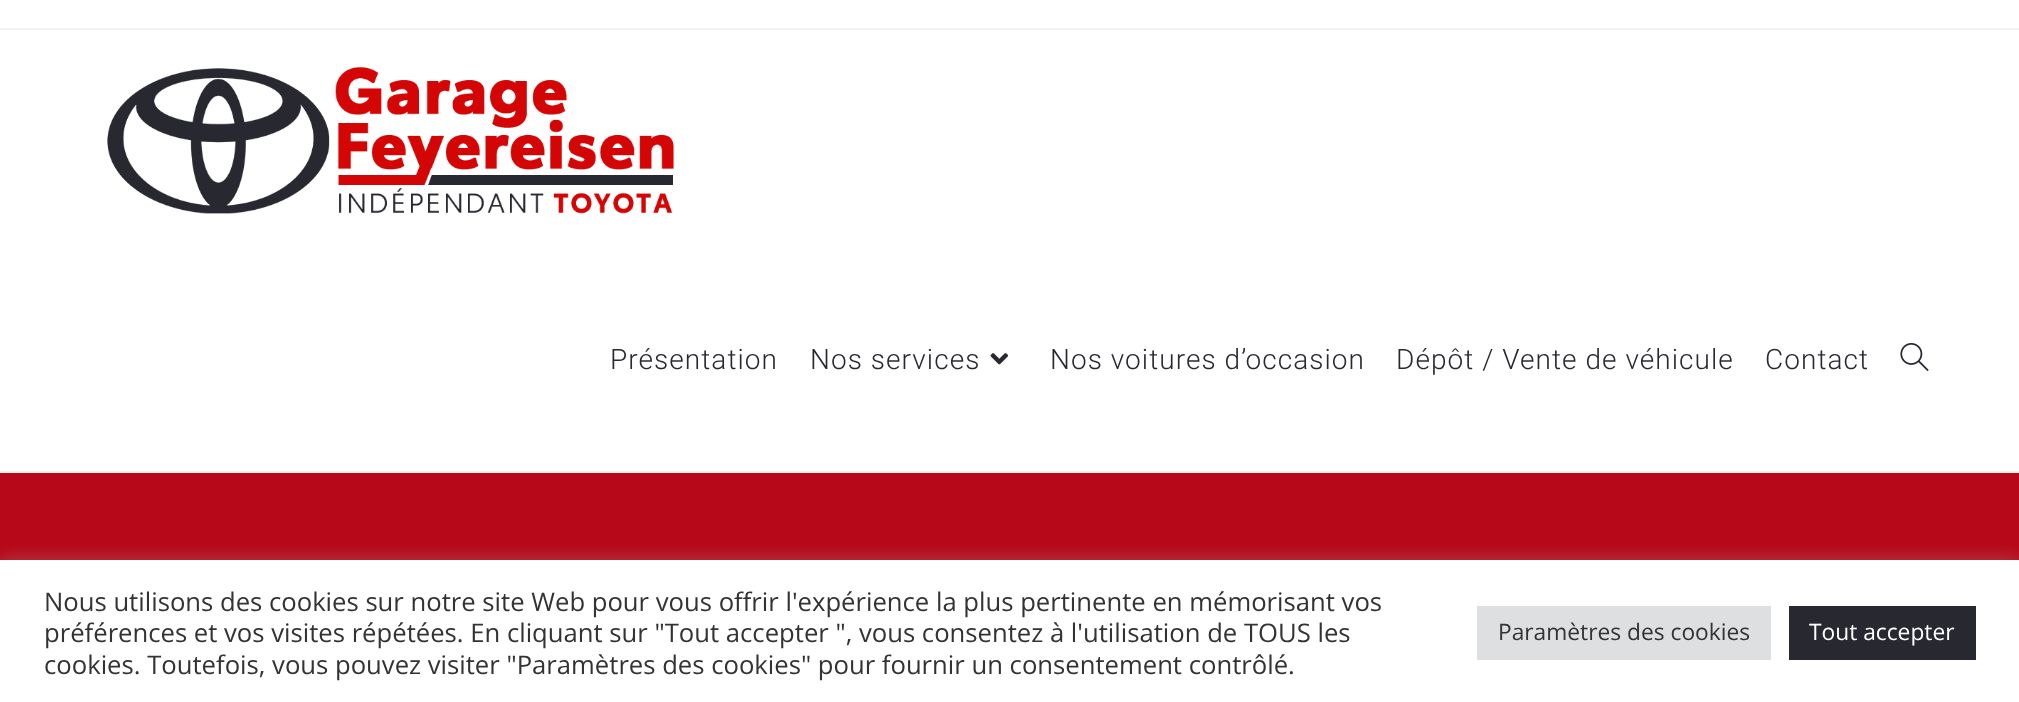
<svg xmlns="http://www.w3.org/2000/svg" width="2019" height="702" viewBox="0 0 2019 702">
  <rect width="100%" height="100%" fill="rgb(255,255,255)"/>
  <rect x="0" y="28" width="2019" height="2" fill="rgb(241,241,241)"/>
  <rect x="0" y="471" width="2019" height="2" fill="rgb(241,241,241)"/>
  <image x="107" y="67" width="567" height="147" href="pic1.png"/>
  <g font-family="Roboto" font-size="28" font-weight="300" letter-spacing="1.05" fill="rgb(40,40,48)">
    <text x="610" y="369">Présentation</text>
    <text x="810" y="369">Nos services</text>
  </g>
  <image x="990" y="353" width="18" height="12" href="pic2.png"/>
  <g font-family="Roboto" font-size="28" font-weight="300" letter-spacing="1.05" fill="rgb(40,40,48)">
    <text x="1050" y="369">Nos voitures d’occasion</text>
    <text x="1396" y="369">Dépôt / Vente de véhicule</text>
    <text x="1765" y="369">Contact</text>
  </g>
  <image x="1900" y="343" width="29" height="28" href="pic3.png"/>
  <rect x="0" y="473" width="2019" height="87" fill="rgb(182,8,24)"/>
  <rect x="0" y="558" width="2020" height="144" fill="rgba(172,171,171,0.3)" filter="blur(9px)"/>
  <rect x="0" y="560" width="2019" height="142" fill="rgb(255,255,255)"/>
  <g font-family="Open Sans" font-size="25.67" fill="rgb(51,51,51)">
    <text>
      <tspan x="44" y="611">Nous utilisons des cookies sur notre site Web pour vous offrir l'expérience la plus pertinente en mémorisant vos</tspan>
      <tspan x="44" y="642">préférences et vos visites répétées. En cliquant sur "Tout accepter ", vous consentez à l'utilisation de TOUS les</tspan>
      <tspan x="44" y="674">cookies. Toutefois, vous pouvez visiter "Paramètres des cookies" pour fournir un consentement contrôlé.</tspan>
    </text>
  </g>
  <rect x="1477" y="606" width="294" height="54" fill="rgb(222,223,224)"/>
  <text x="1498" y="640" font-family="Open Sans" font-size="22.75" fill="rgb(51,51,51)">Paramètres des cookies</text>
  <rect x="1789" y="606" width="187" height="54" fill="rgb(40,40,48)"/>
  <text x="1809" y="640" font-family="Open Sans" font-size="22.75" fill="rgb(255,255,255)">Tout accepter</text>
</svg>
